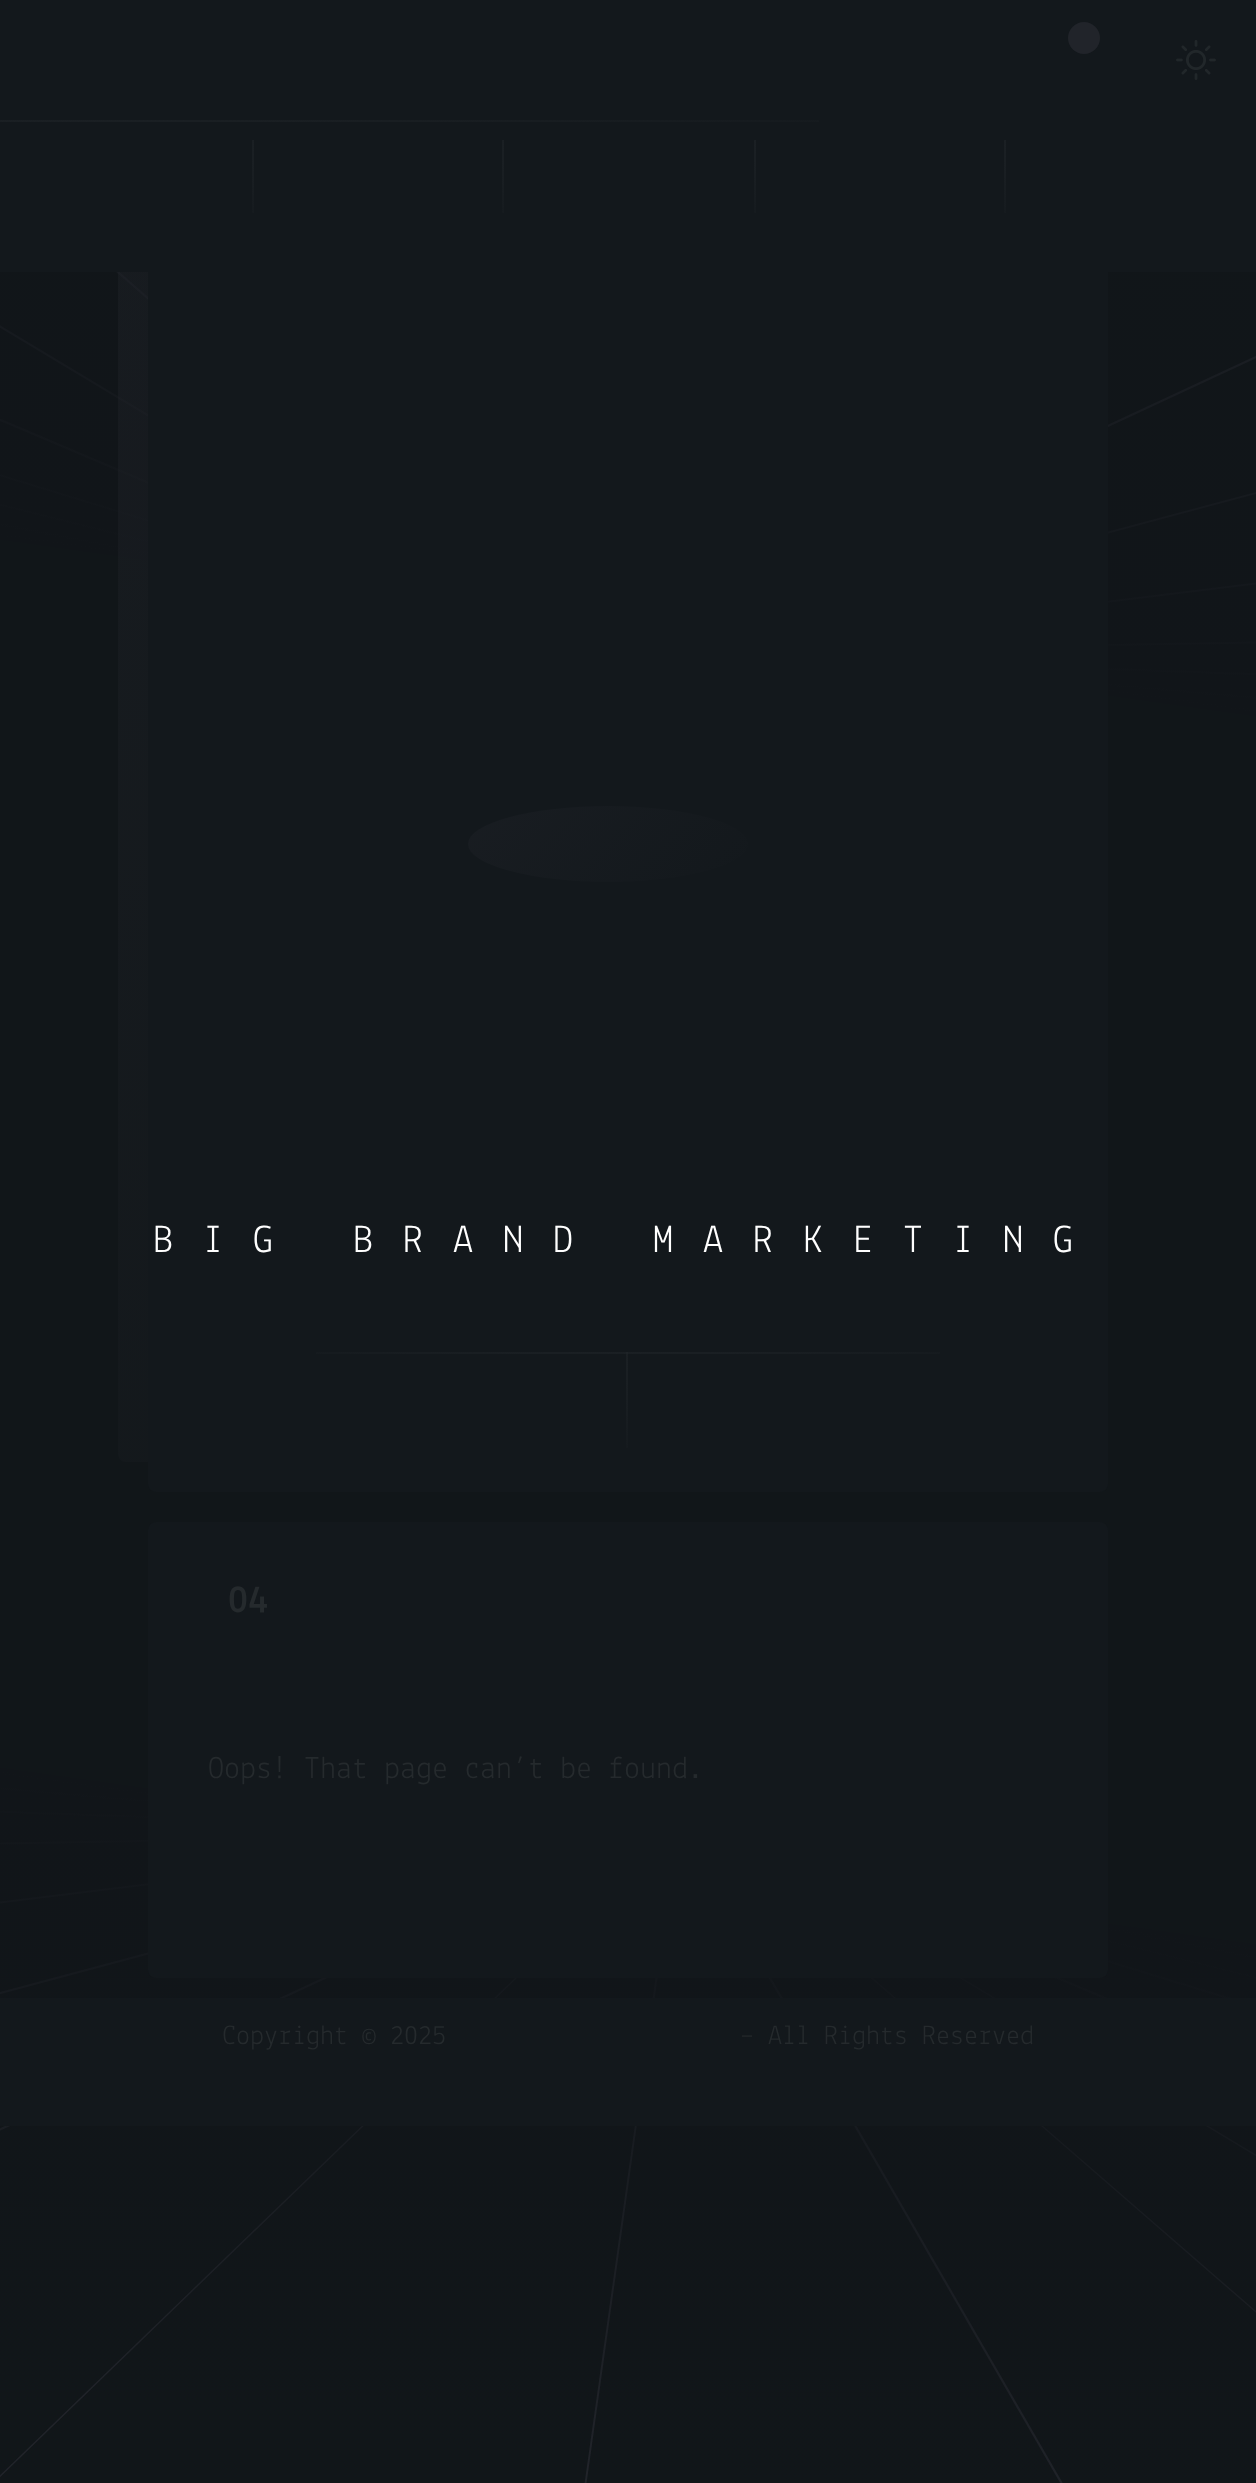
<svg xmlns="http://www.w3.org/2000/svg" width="1256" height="2483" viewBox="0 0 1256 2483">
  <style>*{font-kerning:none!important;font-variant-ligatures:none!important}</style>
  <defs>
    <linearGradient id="g1" gradientUnits="userSpaceOnUse" x1="584" y1="622" x2="671" y2="7"><stop offset="0" stop-color="rgb(17,21,25)"/><stop offset="1" stop-color="rgb(17,21,25)" stop-opacity="0"/></linearGradient>
    <linearGradient id="g2" gradientUnits="userSpaceOnUse" x1="672" y1="1862" x2="585" y2="2477"><stop offset="0" stop-color="rgb(17,21,25)"/><stop offset="1" stop-color="rgb(17,21,25)" stop-opacity="0"/></linearGradient>
    <linearGradient id="g3" gradientUnits="userSpaceOnUse" x1="48" y1="292" x2="1148" y2="1392"><stop offset="0" stop-color="rgb(33,36,42)" stop-opacity="0.4"/><stop offset="1" stop-color="rgb(33,36,42)" stop-opacity="0.01"/></linearGradient>
    <radialGradient id="g4" gradientUnits="userSpaceOnUse" cx="0" cy="0" r="1" gradientTransform="matrix(1776 0 0 1.4 0 121)"><stop offset="0" stop-color="rgb(34,39,43)"/><stop offset="0.7" stop-color="rgb(19,24,28)"/></radialGradient>
    <radialGradient id="g5" gradientUnits="userSpaceOnUse" cx="0" cy="0" r="1" gradientTransform="matrix(1.4 0 0 158 253 140)"><stop offset="0" stop-color="rgb(34,39,43)"/><stop offset="0.7" stop-color="rgb(19,24,28)"/></radialGradient>
    <radialGradient id="g6" gradientUnits="userSpaceOnUse" cx="0" cy="0" r="1" gradientTransform="matrix(1.4 0 0 158 503 140)"><stop offset="0" stop-color="rgb(34,39,43)"/><stop offset="0.7" stop-color="rgb(19,24,28)"/></radialGradient>
    <radialGradient id="g7" gradientUnits="userSpaceOnUse" cx="0" cy="0" r="1" gradientTransform="matrix(1.4 0 0 158 755 140)"><stop offset="0" stop-color="rgb(34,39,43)"/><stop offset="0.7" stop-color="rgb(19,24,28)"/></radialGradient>
    <radialGradient id="g8" gradientUnits="userSpaceOnUse" cx="0" cy="0" r="1" gradientTransform="matrix(1.4 0 0 158 1005 140)"><stop offset="0" stop-color="rgb(34,39,43)"/><stop offset="0.7" stop-color="rgb(19,24,28)"/></radialGradient>
    <linearGradient id="g9" gradientUnits="userSpaceOnUse" x1="519" y1="755" x2="697" y2="933"><stop offset="0" stop-color="rgb(33,36,42)" stop-opacity="0.4"/><stop offset="1" stop-color="rgb(33,36,42)" stop-opacity="0.01"/></linearGradient>
    <radialGradient id="g10" gradientUnits="userSpaceOnUse" cx="0" cy="0" r="1" gradientTransform="matrix(679 0 0 1.4 628 1353)"><stop offset="0" stop-color="rgb(34,39,43)"/><stop offset="0.7" stop-color="rgb(19,24,28)"/></radialGradient>
    <radialGradient id="g11" gradientUnits="userSpaceOnUse" cx="0" cy="0" r="1" gradientTransform="matrix(1.4 0 0 198 627 1352)"><stop offset="0" stop-color="rgb(34,39,43)"/><stop offset="0.7" stop-color="rgb(34,39,43)" stop-opacity="0"/></radialGradient>
  </defs>
  <rect width="100%" height="100%" fill="rgb(17,22,25)"/>
  <path d="M498 604L499 602L-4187-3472L-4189-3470Z" fill="rgb(33,36,42)"/>
  <path d="M448 597L449 595L-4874-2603L-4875-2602Z" fill="rgb(33,36,42)"/>
  <path d="M672 628L673 630L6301-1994L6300-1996Z" fill="rgb(33,36,42)"/>
  <path d="M398 590L399 588L-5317-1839L-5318-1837Z" fill="rgb(33,36,42)"/>
  <path d="M349 583V581L-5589-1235L-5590-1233Z" fill="rgb(33,36,42)"/>
  <path d="M722 635V637L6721-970L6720-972Z" fill="rgb(33,36,42)"/>
  <path d="M262 571V569L-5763-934L-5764-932Z" fill="rgb(33,36,42)"/>
  <path d="M162 557L163 555L-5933-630L-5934-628Z" fill="rgb(33,36,42)"/>
  <path d="M772 642V644L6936-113L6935-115Z" fill="rgb(33,36,42)"/>
  <path d="M821 649V651L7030 543V541Z" fill="rgb(33,36,42)"/>
  <path d="M908 661V663L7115 880V878Z" fill="rgb(33,36,42)"/>
  <path d="M1008 675V677L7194 1219V1217Z" fill="rgb(33,36,42)"/>
  <path d="M-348 487L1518 749V747L-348 485Z" fill="rgb(33,36,42)"/>
  <path d="M-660 447L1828 797L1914 182L-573-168Z" fill="url(#g1)"/>
  <path d="M348 1823L347 1825L-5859 1608V1606Z" fill="rgb(33,36,42)"/>
  <path d="M248 1809V1811L-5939 1269L-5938 1267Z" fill="rgb(33,36,42)"/>
  <path d="M671 1868H673L-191 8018H-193Z" fill="rgb(33,36,42)"/>
  <path d="M634 1863L635 1864L-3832 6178L-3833 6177Z" fill="rgb(33,36,42)"/>
  <path d="M584 1856L585 1858L-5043 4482L-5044 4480Z" fill="rgb(33,36,42)"/>
  <path d="M534 1849L535 1851L-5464 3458V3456Z" fill="rgb(33,36,42)"/>
  <path d="M484 1842L485 1844L-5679 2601V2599Z" fill="rgb(33,36,42)"/>
  <path d="M435 1835V1837L-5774 1945V1943Z" fill="rgb(33,36,42)"/>
  <path d="M708 1873L710 1872L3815 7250L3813 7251Z" fill="rgb(33,36,42)"/>
  <path d="M758 1880L759 1879L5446 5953L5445 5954Z" fill="rgb(33,36,42)"/>
  <path d="M808 1887L809 1886L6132 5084L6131 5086Z" fill="rgb(33,36,42)"/>
  <path d="M857 1894L858 1892L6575 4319L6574 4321Z" fill="rgb(33,36,42)"/>
  <path d="M907 1901L908 1899L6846 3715V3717Z" fill="rgb(33,36,42)"/>
  <path d="M994 1913L995 1912L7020 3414V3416Z" fill="rgb(33,36,42)"/>
  <path d="M1094 1927V1925L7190 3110V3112Z" fill="rgb(33,36,42)"/>
  <path d="M-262 1735L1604 1997V1999L-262 1737Z" fill="rgb(33,36,42)"/>
  <path d="M-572 1687L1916 2037L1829 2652L-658 2302Z" fill="url(#g2)"/>
  <rect x="118" y="222" width="960" height="1240" rx="8" fill="url(#g3)"/>
  <rect x="148" y="252" width="960" height="1240" rx="8" fill="rgb(19,24,28)"/>
  <text x="153" y="1252" font-family="Lekton" font-size="40" letter-spacing="30" fill="rgb(255,255,255)">BIG BRAND MARKETING</text>
  <rect x="0" y="0" width="1256" height="272" fill="rgb(19,24,28)"/>
  <circle cx="1084" cy="38" r="16" fill="rgb(33,36,42)"/>
  <image x="1176" y="40" width="40" height="40" href="pic1.png"/>
  <rect x="0" y="120" width="819" height="2" fill="url(#g4)"/>
  <rect x="252" y="140" width="2" height="73" fill="url(#g5)"/>
  <rect x="502" y="140" width="2" height="73" fill="url(#g6)"/>
  <rect x="754" y="140" width="2" height="73" fill="url(#g7)"/>
  <rect x="1004" y="140" width="2" height="73" fill="url(#g8)"/>
  <ellipse cx="608" cy="844" rx="140" ry="38" fill="url(#g9)"/>
  <rect x="316" y="1352" width="624" height="2" fill="url(#g10)"/>
  <rect x="626" y="1352" width="2" height="96" fill="url(#g11)"/>
  <rect x="148" y="1522" width="960" height="456" rx="8" fill="rgb(19,24,28)"/>
  <text x="228" y="1612" font-family="Lekton" font-size="40" font-weight="bold" fill="rgb(37,42,45)">04</text>
  <text x="208" y="1778" font-family="Lekton" font-size="32" fill="rgb(37,42,45)">Oops! That page can’t be found.</text>
  <rect x="0" y="1998" width="1256" height="128" fill="rgb(19,24,28)"/>
  <g font-family="Lekton" font-size="28" fill="rgb(37,42,45)">
    <text x="222" y="2044">Copyright © 2025</text>
    <text x="740" y="2044">– All Rights Reserved</text>
  </g>
</svg>
